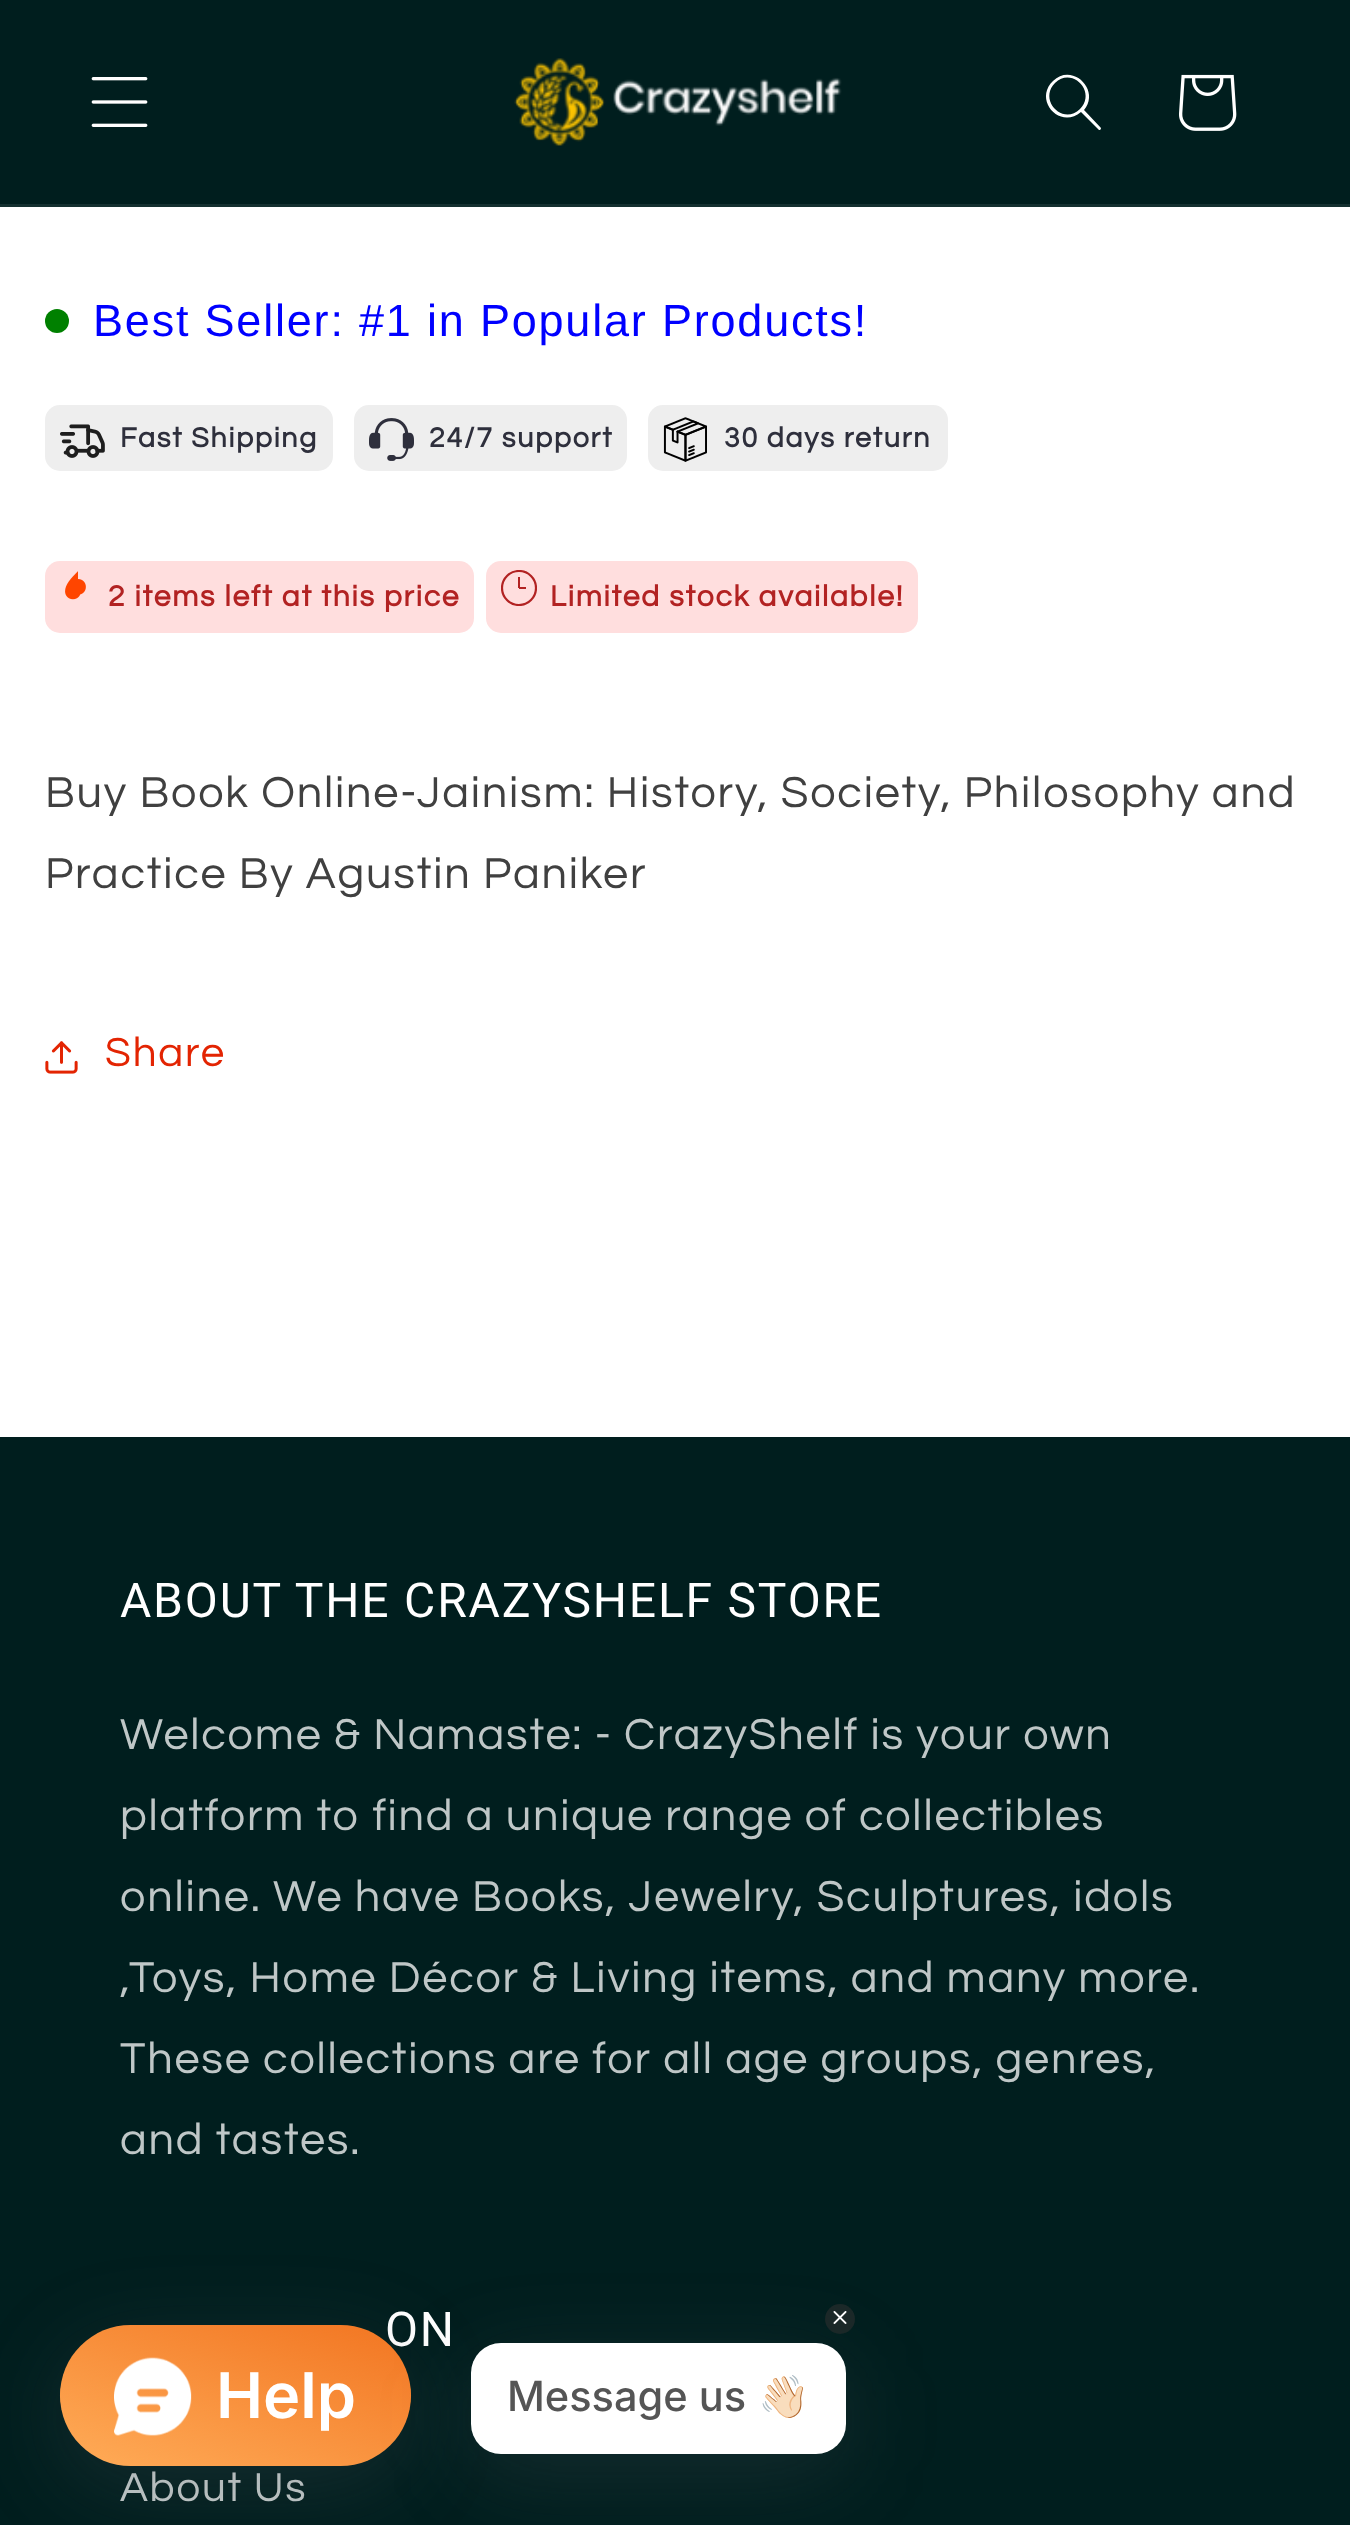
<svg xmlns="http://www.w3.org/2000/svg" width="1350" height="2525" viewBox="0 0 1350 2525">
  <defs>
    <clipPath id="clip1"><rect x="501" y="570" width="36" height="36"/></clipPath>
    <linearGradient id="g1" gradientUnits="userSpaceOnUse" x1="276" y1="2278" x2="195" y2="2513"><stop offset="0" stop-color="rgb(242,117,33)"/><stop offset="1" stop-color="rgb(255,172,88)"/></linearGradient>
  </defs>
  <rect width="100%" height="100%" fill="rgb(255,255,255)"/>
  <rect x="0" y="0" width="1350" height="204" fill="rgb(0,30,30)"/>
  <rect x="0" y="204" width="1350" height="3" fill="rgb(20,48,48)"/>
  <image x="91" y="77" width="57" height="50" href="pic1.png"/>
  <image x="514" y="58" width="328" height="88" href="pic2.png"/>
  <path d="M1080 109C1063 126 1038 100 1055 83C1072 66 1097 92 1080 109M1081 112C1060 130 1033 100 1053 81C1072 62 1101 90 1084 110L1101 128C1101 130 1099 131 1098 129Z" fill="rgb(255,255,255)" fill-rule="evenodd"/>
  <image x="1179" y="74" width="58" height="57" href="pic3.png"/>
  <circle cx="57" cy="321" r="12" fill="rgb(0,128,0)"/>
  <text x="93" y="336" font-family="Liberation Sans" font-size="45" letter-spacing="1.8" fill="rgb(0,0,255)">Best Seller: #1 in Popular Products!</text>
  <rect x="45" y="405" width="288" height="66" rx="15" fill="rgb(238,238,238)"/>
  <image x="60" y="424" width="45" height="34" href="pic4.png"/>
  <text x="120" y="447" font-family="Questrial" font-size="28.5" font-weight="bold" letter-spacing="1.8" fill="rgb(46,47,60)">Fast Shipping</text>
  <rect x="354" y="405" width="273" height="66" rx="15" fill="rgb(238,238,238)"/>
  <image x="369" y="418" width="45" height="43" href="pic5.png"/>
  <text x="429" y="447" font-family="Questrial" font-size="28.5" font-weight="bold" letter-spacing="1.8" fill="rgb(46,47,60)">24/7 support</text>
  <rect x="648" y="405" width="300" height="66" rx="15" fill="rgb(238,238,238)"/>
  <image x="663" y="417" width="44" height="45" href="pic6.png"/>
  <text x="724" y="447" font-family="Questrial" font-size="28.5" font-weight="bold" letter-spacing="1.8" fill="rgb(46,47,60)">30 days return</text>
  <rect x="45" y="561" width="429" height="72" rx="15" fill="rgb(255,222,222)"/>
  <image x="65" y="571" width="21" height="29" href="pic7.png"/>
  <text x="108" y="606" font-family="Questrial" font-size="30" font-weight="bold" letter-spacing="1.8" fill="rgb(178,34,34)">2 items left at this price</text>
  <rect x="486" y="561" width="432" height="72" rx="15" fill="rgb(255,222,222)"/>
  <g clip-path="url(#clip1)">
    <circle cx="519" cy="588" r="17" fill="none" stroke="rgb(178,34,34)" stroke-width="2.2"/>
  </g>
  <rect x="518" y="577" width="2" height="11" fill="rgb(178,34,34)"/>
  <rect x="519" y="587" width="7" height="2" fill="rgb(178,34,34)"/>
  <text x="550" y="606" font-family="Questrial" font-size="30" font-weight="bold" letter-spacing="1.8" fill="rgb(178,34,34)">Limited stock available!</text>
  <g font-family="Questrial" font-size="45" letter-spacing="1.8" fill="rgb(64,64,64)">
    <text>
      <tspan x="45" y="807">Buy Book Online-Jainism: History, Society, Philosophy and</tspan>
      <tspan x="45" y="888">Practice By Agustin Paniker</tspan>
    </text>
  </g>
  <image x="45" y="1041" width="33" height="33" href="pic8.png"/>
  <text x="105" y="1066" font-family="Questrial" font-size="42" letter-spacing="1.8" fill="rgb(227,36,2)">Share</text>
  <rect x="0" y="1437" width="1350" height="1088" fill="rgb(0,30,30)"/>
  <text x="120" y="1617" font-family="Roboto" font-size="48" letter-spacing="1.8" fill="rgb(255,255,255)">ABOUT THE CRAZYSHELF STORE</text>
  <g font-family="Questrial" font-size="45" letter-spacing="1.8" fill="rgb(191,199,199)">
    <text>
      <tspan x="120" y="1749">Welcome &amp; Namaste: - CrazyShelf is your own</tspan>
      <tspan x="120" y="1830">platform to find a unique range of collectibles</tspan>
      <tspan x="120" y="1911">online. We have Books, Jewelry, Sculptures, idols</tspan>
      <tspan x="120" y="1992">,Toys, Home Décor &amp; Living items, and many more.</tspan>
      <tspan x="120" y="2073">These collections are for all age groups, genres,</tspan>
      <tspan x="120" y="2154">and tastes.</tspan>
    </text>
  </g>
  <text x="385" y="2346" font-family="Roboto" font-size="48" letter-spacing="1.8" fill="rgb(255,255,255)">ON</text>
  <text x="120" y="2501" font-family="Questrial" font-size="42" letter-spacing="1.8" fill="rgb(191,199,199)">About Us</text>
  <rect x="60" y="2346" width="351" height="141" rx="70.5" fill="rgba(100,100,111,0.2)" filter="blur(43.5px)"/>
  <rect x="60" y="2325" width="351" height="141" rx="70.5" fill="url(#g1)"/>
  <ellipse cx="235.5" cy="2395.5" rx="175.5" ry="70.5" fill="url(#g1)"/>
  <image x="114" y="2357" width="78" height="79" href="pic9.png"/>
  <text x="216" y="2418" font-family="Inter" font-size="63" font-weight="600" fill="rgb(255,255,255)">Help</text>
  <rect x="471" y="2364" width="375" height="111" rx="30" fill="rgba(100,100,111,0.2)" filter="blur(43.5px)"/>
  <rect x="471" y="2343" width="375" height="111" rx="30" fill="rgb(255,255,255)"/>
  <circle cx="840" cy="2319" r="15" fill="rgb(27,40,40)"/>
  <image x="833" y="2311" width="14" height="13" href="pic10.png"/>
  <text x="507" y="2411" font-family="Inter" font-size="41.5" font-weight="500" fill="rgb(85,85,85)">Message us</text>
  <text x="758" y="2411" font-family="Noto Color Emoji" font-size="41.5" fill="rgb(85,85,85)">👋🏻</text>
</svg>
